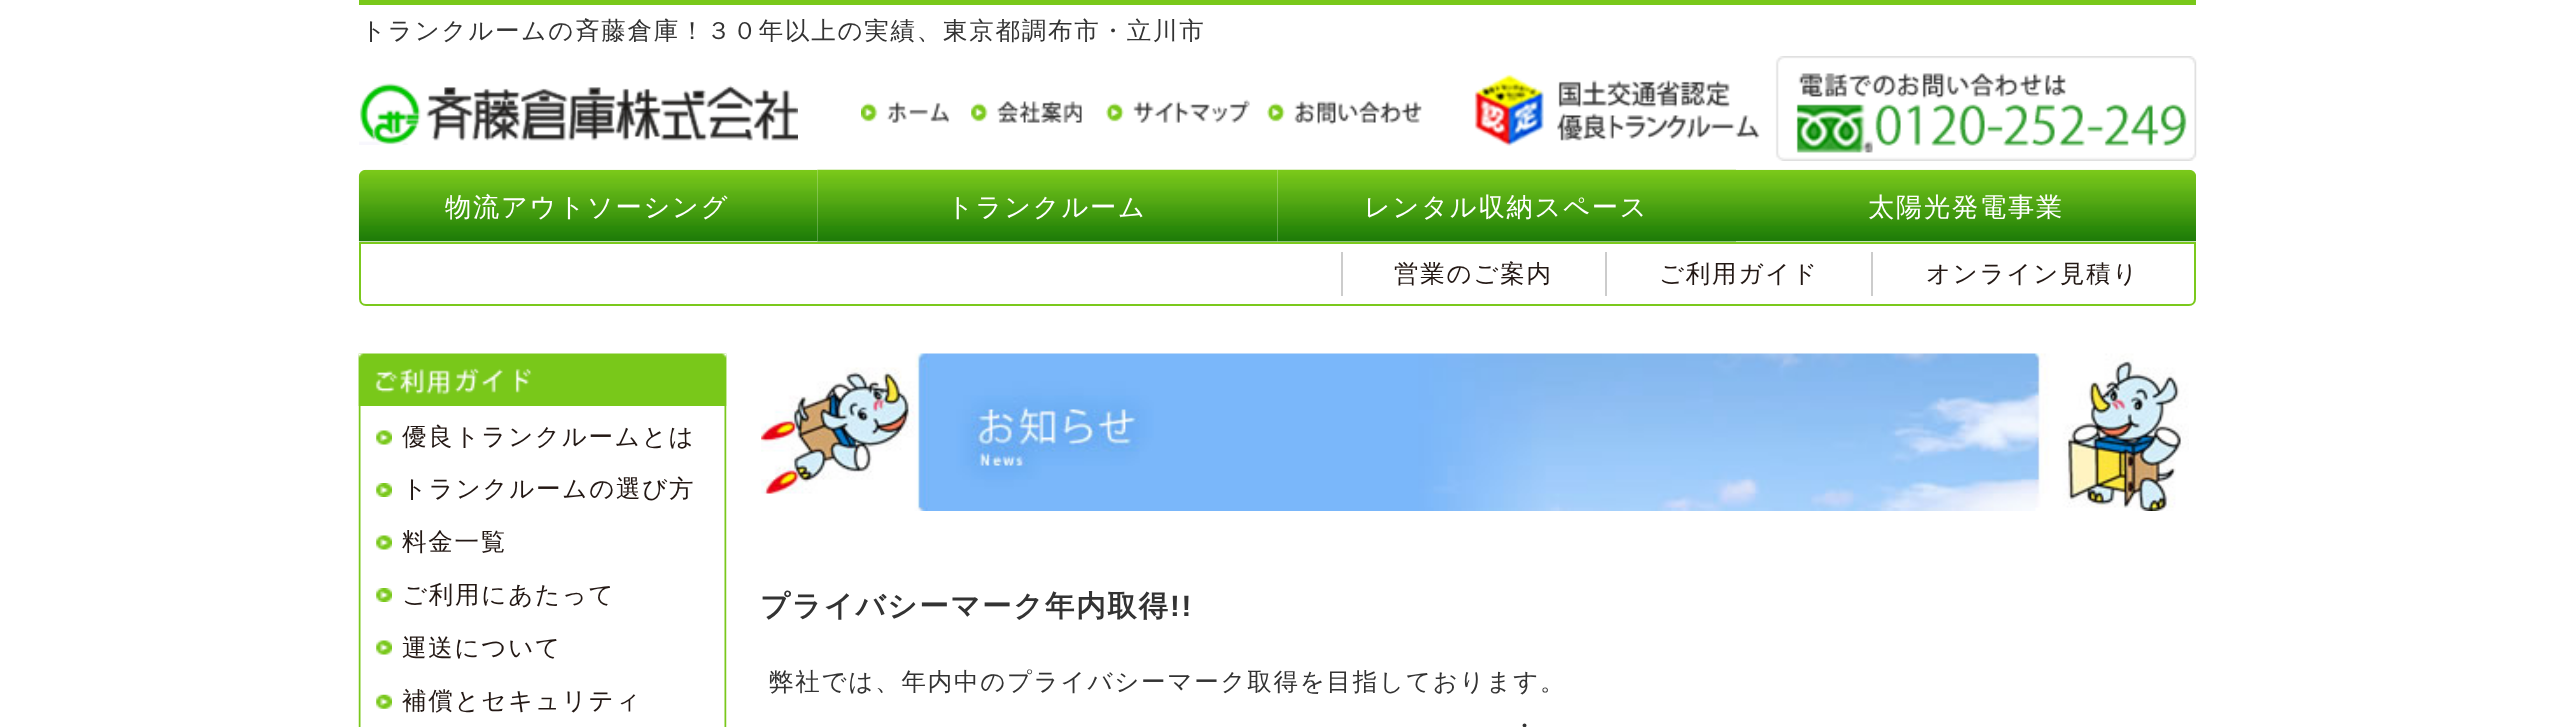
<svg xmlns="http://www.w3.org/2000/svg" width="2552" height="727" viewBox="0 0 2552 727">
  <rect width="100%" height="100%" fill="rgb(255,255,255)"/>
  <rect x="359" y="0" width="1837" height="5" fill="rgb(121,200,26)"/>
  <text x="361" y="39" font-family="WenQuanYi Zen Hei" font-size="24.5" font-weight="500" letter-spacing="1.75" fill="rgb(51,51,51)">トランクルームの斉藤倉庫！３０年以上の実績、東京都調布市・立川市</text>
  <image x="359" y="83" width="439" height="62" href="pic1.png"/>
  <image x="861" y="101" width="89" height="22" href="pic2.png"/>
  <image x="971" y="101" width="111" height="22" href="pic3.png"/>
  <image x="1106" y="99" width="144" height="24" href="pic4.png"/>
  <image x="1267" y="101" width="155" height="24" href="pic5.png"/>
  <image x="1474" y="56" width="723" height="105" href="pic6.png"/>
  <image x="358" y="169" width="460" height="73" href="pic7.png"/>
  <text x="445" y="216" font-family="WenQuanYi Zen Hei" font-size="26.25" font-weight="500" letter-spacing="1.75" fill="rgb(255,255,255)">物流アウトソーシング</text>
  <image x="817" y="169" width="461" height="73" href="pic8.png"/>
  <text x="947" y="216" font-family="WenQuanYi Zen Hei" font-size="26.25" font-weight="500" letter-spacing="1.75" fill="rgb(255,255,255)">トランクルーム</text>
  <image x="1277" y="169" width="459" height="73" href="pic9.png"/>
  <text x="1364" y="216" font-family="WenQuanYi Zen Hei" font-size="26.25" font-weight="500" letter-spacing="1.75" fill="rgb(255,255,255)">レンタル収納スペース</text>
  <image x="1736" y="169" width="460" height="73" href="pic10.png"/>
  <text x="1868" y="216" font-family="WenQuanYi Zen Hei" font-size="26.25" font-weight="500" letter-spacing="1.75" fill="rgb(255,255,255)">太陽光発電事業</text>
  <path d="M360 243H2195V299C2195 302.5 2192.5 305 2189 305H366C362.5 305 360 302.5 360 299Z" fill="none" stroke="rgb(123,201,29)" stroke-width="2"/>
  <rect x="1341" y="252" width="2" height="44" fill="rgb(204,204,204)"/>
  <text x="1394" y="282" font-family="WenQuanYi Zen Hei" font-size="24.5" font-weight="500" letter-spacing="1.75" fill="rgb(35,24,20)">営業のご案内</text>
  <rect x="1605" y="252" width="2" height="44" fill="rgb(204,204,204)"/>
  <text x="1659" y="282" font-family="WenQuanYi Zen Hei" font-size="24.5" font-weight="500" letter-spacing="1.75" fill="rgb(35,24,20)">ご利用ガイド</text>
  <rect x="1871" y="252" width="2" height="44" fill="rgb(204,204,204)"/>
  <text x="1926" y="282" font-family="WenQuanYi Zen Hei" font-size="24.5" font-weight="500" letter-spacing="1.75" fill="rgb(35,24,20)">オンライン見積り</text>
  <image x="358" y="353" width="369" height="374" href="pic11.png"/>
  <image x="358" y="353" width="369" height="53" href="pic12.png"/>
  <image x="376" y="430" width="16" height="15" href="pic13.png"/>
  <text x="402" y="445" font-family="WenQuanYi Zen Hei" font-size="24.5" font-weight="500" letter-spacing="1.75" fill="rgb(35,24,20)">優良トランクルームとは</text>
  <image x="376" y="483" width="16" height="14" href="pic14.png"/>
  <text x="402" y="497" font-family="WenQuanYi Zen Hei" font-size="24.5" font-weight="500" letter-spacing="1.75" fill="rgb(35,24,20)">トランクルームの選び方</text>
  <image x="376" y="535" width="16" height="15" href="pic13.png"/>
  <text x="402" y="550" font-family="WenQuanYi Zen Hei" font-size="24.5" font-weight="500" letter-spacing="1.75" fill="rgb(35,24,20)">料金一覧</text>
  <image x="376" y="588" width="16" height="14" href="pic14.png"/>
  <text x="402" y="603" font-family="WenQuanYi Zen Hei" font-size="24.5" font-weight="500" letter-spacing="1.75" fill="rgb(35,24,20)">ご利用にあたって</text>
  <image x="376" y="640" width="16" height="15" href="pic13.png"/>
  <text x="402" y="656" font-family="WenQuanYi Zen Hei" font-size="24.5" font-weight="500" letter-spacing="1.75" fill="rgb(35,24,20)">運送について</text>
  <image x="376" y="694" width="16" height="15" href="pic15.png"/>
  <text x="402" y="709" font-family="WenQuanYi Zen Hei" font-size="24.5" font-weight="500" letter-spacing="1.75" fill="rgb(35,24,20)">補償とセキュリティ</text>
  <image x="761" y="353" width="1428" height="158" href="pic16.png"/>
  <text x="760" y="616" font-family="WenQuanYi Zen Hei" font-size="29.4" font-weight="bold" letter-spacing="1.75" fill="rgb(51,51,51)">プライバシーマーク年内取得</text>
  <text x="1170" y="616" font-family="Liberation Sans" font-size="29.4" font-weight="bold" letter-spacing="1.75" fill="rgb(51,51,51)">!!</text>
  <g font-family="WenQuanYi Zen Hei" font-size="24.5" font-weight="500" letter-spacing="1.75" fill="rgb(51,51,51)">
    <text x="769" y="690">弊社では、年内中のプライバシーマーク取得を目指しております。</text>
    <text x="1512" y="734">・</text>
  </g>
</svg>
